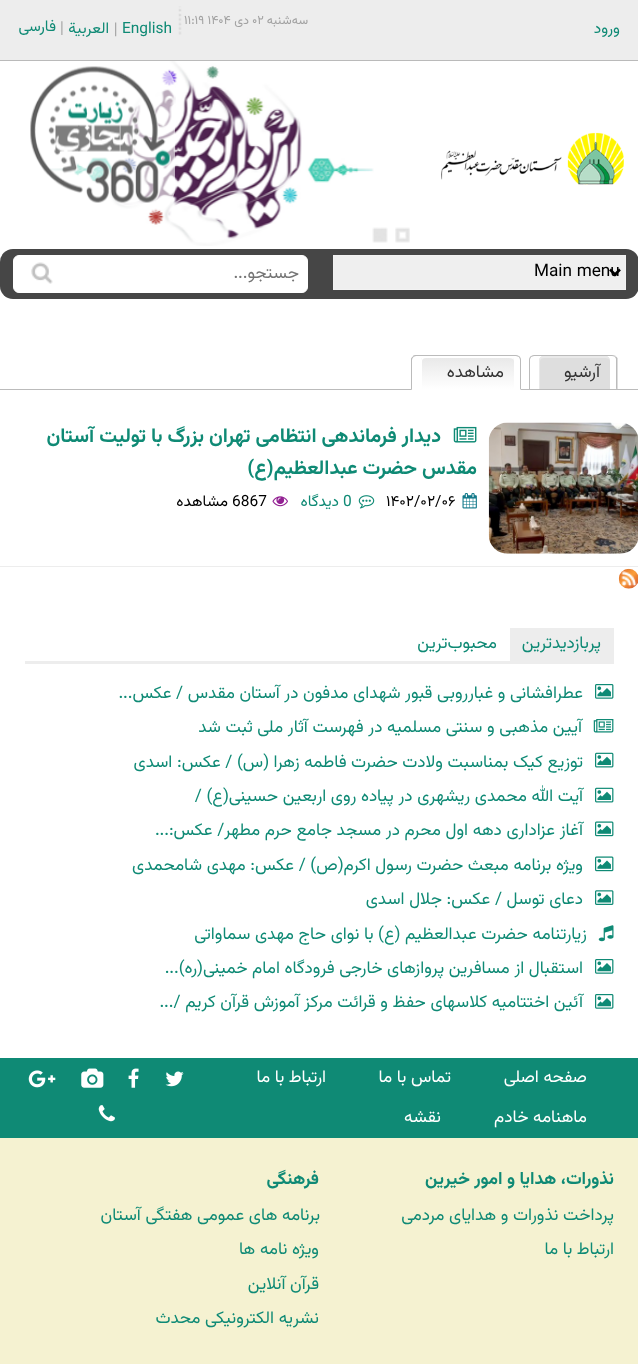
<svg xmlns="http://www.w3.org/2000/svg" width="638" height="1364" viewBox="0 0 638 1364">
  <defs>
    <clipPath id="clip1"><path d="M426 356H509C512 356 514 358 514 361V389H421V361C421 358 423 356 426 356Z"/></clipPath>
    <linearGradient id="g1" gradientUnits="userSpaceOnUse" x1="468" y1="358" x2="468" y2="389"><stop offset="0" stop-color="rgb(233,233,233)"/><stop offset="1" stop-color="rgb(255,255,255)"/></linearGradient>
  </defs>
  <rect width="100%" height="100%" fill="rgb(255,255,255)"/>
  <rect x="0" y="0" width="638" height="60" fill="rgb(237,237,237)"/>
  <rect x="0" y="60" width="638" height="1" fill="rgb(186,186,186)"/>
  <text x="620" y="33" font-family="Vazirmatn" font-size="15.5" direction="rtl" fill="rgb(15,138,117)">ورود</text>
  <image x="178" y="6" width="4" height="29" href="pic1.png"/>
  <text x="308" y="24" font-family="Vazirmatn" font-size="12.5" direction="rtl" fill="rgb(161,161,161)">سه‌شنبه</text>
  <text x="252" y="24" font-family="Vazirmatn" font-size="12.5" fill="rgb(161,161,161)">۰۲</text>
  <text x="249" y="24" font-family="Vazirmatn" font-size="12.5" direction="rtl" fill="rgb(161,161,161)">دی</text>
  <text x="184" y="24" font-family="Vazirmatn" font-size="12.5" fill="rgb(161,161,161)">۱۱:۱۹ ۱۴۰۴</text>
  <text x="122" y="33" font-family="Vazirmatn" font-size="15.5" fill="rgb(15,138,117)">English</text>
  <image x="115" y="22" width="2" height="15" href="pic2.png"/>
  <text x="109" y="33" font-family="Vazirmatn" font-size="15.5" direction="rtl" fill="rgb(15,138,117)">العربية</text>
  <image x="61" y="21" width="2" height="14" href="pic3.png"/>
  <text x="56" y="31" font-family="Vazirmatn" font-size="15.5" direction="rtl" fill="rgb(15,138,117)">فارسی</text>
  <image x="441" y="132" width="183" height="53" href="pic4.png"/>
  <image x="395" y="227" width="15" height="16" href="pic5.png"/>
  <image x="48" y="61" width="326" height="185" href="pic7.png"/>
  <image x="372" y="227" width="16" height="16" href="pic6.png"/>
  <rect x="25" y="63" width="150" height="150" rx="25" fill="rgba(255,255,255,0.62)"/>
  <image x="30" y="66" width="141" height="138" href="pic8.png"/>
  <rect x="0" y="249" width="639" height="50" rx="13" fill="rgb(70,70,70)"/>
  <rect x="333.5" y="255.5" width="292" height="34" fill="rgb(239,239,239)" stroke="rgb(242,242,242)"/>
  <path d="M610 269.5L615 274.5L620 269.5" fill="none" stroke="rgb(0,0,0)" stroke-width="2.5"/>
  <text x="534" y="276" font-family="Vazirmatn" font-size="17.2" fill="rgb(0,0,0)">Main menu</text>
  <rect x="13.5" y="255.5" width="294" height="37" rx="5.5" fill="rgb(255,255,255)" stroke="rgb(255,255,255)"/>
  <text x="299" y="278" font-family="Vazirmatn" font-size="17.2" direction="rtl" fill="rgb(117,117,117)">جستجو...</text>
  <image x="31" y="262" width="22" height="22" href="pic9.png"/>
  <rect x="0" y="389" width="638" height="1" fill="rgb(187,187,187)"/>
  <path d="M534 355C532 355 531 356 530 357H531C532 357 533 356 534 356H612C614 356 615 357 615 357L616 356C615 356 614 355 612 355Z" fill="rgb(187,187,187)"/>
  <path d="M617.5 358V390L616 388.5V360C616 359 616 358 615 357.5L616 356.5Z" fill="rgb(187,187,187)"/>
  <path d="M530.5 356.5C529.5 357.5 529 358.5 529 360V390L530 389V360C530 359 530.5 358 531 357.5Z" fill="rgb(187,187,187)"/>
  <path d="M544 356H605C608 356 610 358 610 361V389H539V361C539 358 541 356 544 356Z" fill="rgb(222,222,222)"/>
  <path d="M544 356H605C608 356 610 358 610 361V389H539V361C539 358 541 356 544 356ZM544 358H605C608 358 610 359 610 361V389H540V361C540 359 542 358 544 358Z" fill="rgb(233,233,233)" fill-rule="evenodd"/>
  <text x="600" y="377" font-family="Vazirmatn" font-size="17.2" letter-spacing="1.25" direction="rtl" fill="rgb(51,51,51)">آرشیو</text>
  <path d="M416 355C415 355 413 355 413 356V357L416 356H516L519 357H520C519 356 518 355 516 355Z" fill="rgb(187,187,187)"/>
  <path d="M519.5 356.5C520.5 357.5 521 358.5 521 360V390L520 389V360C520 359 519.5 358 519 357.5Z" fill="rgb(187,187,187)"/>
  <path d="M411 390H521L520 389H412Z" fill="rgb(255,255,255)"/>
  <path d="M411 390V358.5L412.5 356.5L413.5 357C412.5 358 412 359 412 360V389Z" fill="rgb(187,187,187)"/>
  <g clip-path="url(#clip1)">
    <rect x="421" y="358" width="93" height="31" fill="url(#g1)"/>
  </g>
  <path d="M426 356H509C512 356 514 358 514 361V389H421V361C421 358 423 356 426 356ZM426 358H509C512 358 514 359 514 361V389H422V361C422 359 424 358 426 358Z" fill="rgb(255,255,255)" fill-rule="evenodd"/>
  <text x="504" y="377" font-family="Vazirmatn" font-size="17.2" letter-spacing="1.25" direction="rtl" fill="rgb(51,51,51)">مشاهده</text>
  <rect x="0" y="566" width="638" height="1" fill="rgb(237,237,237)"/>
  <image x="488" y="422" width="150" height="132" href="pic10.png"/>
  <image x="453" y="426" width="24" height="17" href="pic11.png"/>
  <g font-family="Vazirmatn" font-size="19.8" font-weight="bold" direction="rtl" fill="rgb(15,138,117)">
    <text x="441" y="442">دیدار فرماندهی انتظامی تهران بزرگ با تولیت آستان</text>
    <text x="477" y="474">مقدس حضرت عبدالعظیم(ع)</text>
  </g>
  <image x="462" y="493" width="15" height="16" href="pic12.png"/>
  <text x="386" y="506" font-family="Vazirmatn" font-size="15.5" fill="rgb(0,0,0)">۱۴۰۲/۰۲/۰۶</text>
  <image x="358" y="495" width="17" height="14" href="pic13.png"/>
  <text x="343" y="506" font-family="Vazirmatn" font-size="15.5" fill="rgb(15,138,117)">0</text>
  <text x="339" y="506" font-family="Vazirmatn" font-size="15.5" direction="rtl" fill="rgb(15,138,117)">دیدگاه</text>
  <image x="272" y="496" width="16" height="11" href="pic14.png"/>
  <text x="232" y="506" font-family="Vazirmatn" font-size="15.5" fill="rgb(0,0,0)">6867</text>
  <text x="228" y="506" font-family="Vazirmatn" font-size="15.5" direction="rtl" fill="rgb(0,0,0)">مشاهده</text>
  <image x="618" y="568" width="20" height="21" href="pic15.png"/>
  <rect x="25" y="661" width="589" height="3" fill="rgb(237,237,237)"/>
  <rect x="510" y="628" width="104" height="33" fill="rgb(237,237,237)"/>
  <g font-family="Vazirmatn" font-size="17.2" direction="rtl" fill="rgb(15,138,117)">
    <text x="601" y="648">پربازدیدترین</text>
    <text x="497" y="648">محبوب‌ترین</text>
  </g>
  <image x="595" y="684" width="19" height="15" href="pic16.png"/>
  <text x="583" y="698" font-family="Vazirmatn" font-size="17.2" direction="rtl" fill="rgb(15,138,117)">عطرافشانی و غبارروبی قبور شهدای مدفون در آستان مقدس / عکس...</text>
  <image x="593" y="719" width="21" height="14" href="pic17.png"/>
  <text x="582" y="732" font-family="Vazirmatn" font-size="17.2" direction="rtl" fill="rgb(15,138,117)">آیین مذهبی و سنتی مسلمیه در فهرست آثار ملی ثبت شد</text>
  <image x="595" y="752" width="19" height="16" href="pic18.png"/>
  <text x="583" y="767" font-family="Vazirmatn" font-size="17.2" direction="rtl" fill="rgb(15,138,117)">توزیع کیک بمناسبت ولادت حضرت فاطمه زهرا (س) / عکس: اسدی</text>
  <image x="595" y="787" width="19" height="16" href="pic18.png"/>
  <text x="583" y="801" font-family="Vazirmatn" font-size="17.2" direction="rtl" fill="rgb(15,138,117)">آیت الله محمدی ریشهری در پیاده روی اربعین حسینی(ع) /</text>
  <image x="595" y="821" width="19" height="16" href="pic19.png"/>
  <text x="583" y="835" font-family="Vazirmatn" font-size="17.2" direction="rtl" fill="rgb(15,138,117)">آغاز عزاداری دهه اول محرم در مسجد جامع حرم مطهر/ عکس:...</text>
  <image x="595" y="856" width="19" height="16" href="pic19.png"/>
  <text x="583" y="870" font-family="Vazirmatn" font-size="17.2" direction="rtl" fill="rgb(15,138,117)">ویژه برنامه مبعث حضرت رسول اکرم(ص) / عکس: مهدی شامحمدی</text>
  <image x="595" y="890" width="19" height="15" href="pic20.png"/>
  <text x="583" y="904" font-family="Vazirmatn" font-size="17.2" direction="rtl" fill="rgb(15,138,117)">دعای توسل / عکس: جلال اسدی</text>
  <image x="598" y="925" width="16" height="17" href="pic21.png"/>
  <text x="587" y="939" font-family="Vazirmatn" font-size="17.2" direction="rtl" fill="rgb(15,138,117)">زیارتنامه حضرت عبدالعظیم (ع) با نوای حاج مهدی سماواتی</text>
  <image x="595" y="959" width="19" height="15" href="pic16.png"/>
  <text x="583" y="973" font-family="Vazirmatn" font-size="17.2" direction="rtl" fill="rgb(15,138,117)">استقبال از مسافرین پروازهای خارجی فرودگاه امام خمینی(ره)...</text>
  <image x="595" y="994" width="19" height="15" href="pic16.png"/>
  <text x="583" y="1007" font-family="Vazirmatn" font-size="17.2" direction="rtl" fill="rgb(15,138,117)">آئین اختتامیه کلاسهای حفظ و قرائت مرکز آموزش قرآن کریم /...</text>
  <rect x="0" y="1058" width="638" height="80" fill="rgb(15,138,117)"/>
  <g font-family="Vazirmatn" font-size="17.2" direction="rtl" fill="rgb(255,255,255)">
    <text x="587" y="1082">صفحه اصلی</text>
    <text x="451" y="1082">تماس با ما</text>
    <text x="326" y="1082">ارتباط با ما</text>
    <text x="587" y="1122">ماهنامه خادم</text>
    <text x="441" y="1122">نقشه</text>
  </g>
  <image x="165" y="1071" width="19" height="16" href="pic22.png"/>
  <image x="128" y="1068" width="11" height="20" href="pic23.png"/>
  <image x="81" y="1068" width="23" height="20" href="pic24.png"/>
  <image x="28" y="1070" width="28" height="18" href="pic25.png"/>
  <image x="98" y="1105" width="17" height="17" href="pic26.png"/>
  <rect x="0" y="1138" width="638" height="226" fill="rgb(245,242,209)"/>
  <text x="614" y="1184" font-family="Vazirmatn" font-size="17.5" font-weight="bold" direction="rtl" fill="rgb(15,138,117)">نذورات، هدایا و امور خیرین</text>
  <g font-family="Vazirmatn" font-size="17.2" direction="rtl" fill="rgb(15,138,117)">
    <text>
      <tspan x="614" y="1220">پرداخت نذورات و هدایای مردمی</tspan>
      <tspan x="614" y="1254">ارتباط با ما</tspan>
    </text>
  </g>
  <text x="319" y="1184" font-family="Vazirmatn" font-size="17.5" font-weight="bold" direction="rtl" fill="rgb(15,138,117)">فرهنگی</text>
  <g font-family="Vazirmatn" font-size="17.2" direction="rtl" fill="rgb(15,138,117)">
    <text x="320" y="1220">برنامه های عمومی هفتگی آستان</text>
    <text x="319" y="1254">ویژه نامه ها</text>
    <text>
      <tspan x="319" y="1289">قرآن آنلاین</tspan>
      <tspan x="319" y="1323">نشریه الکترونیکی محدث</tspan>
    </text>
  </g>
</svg>
